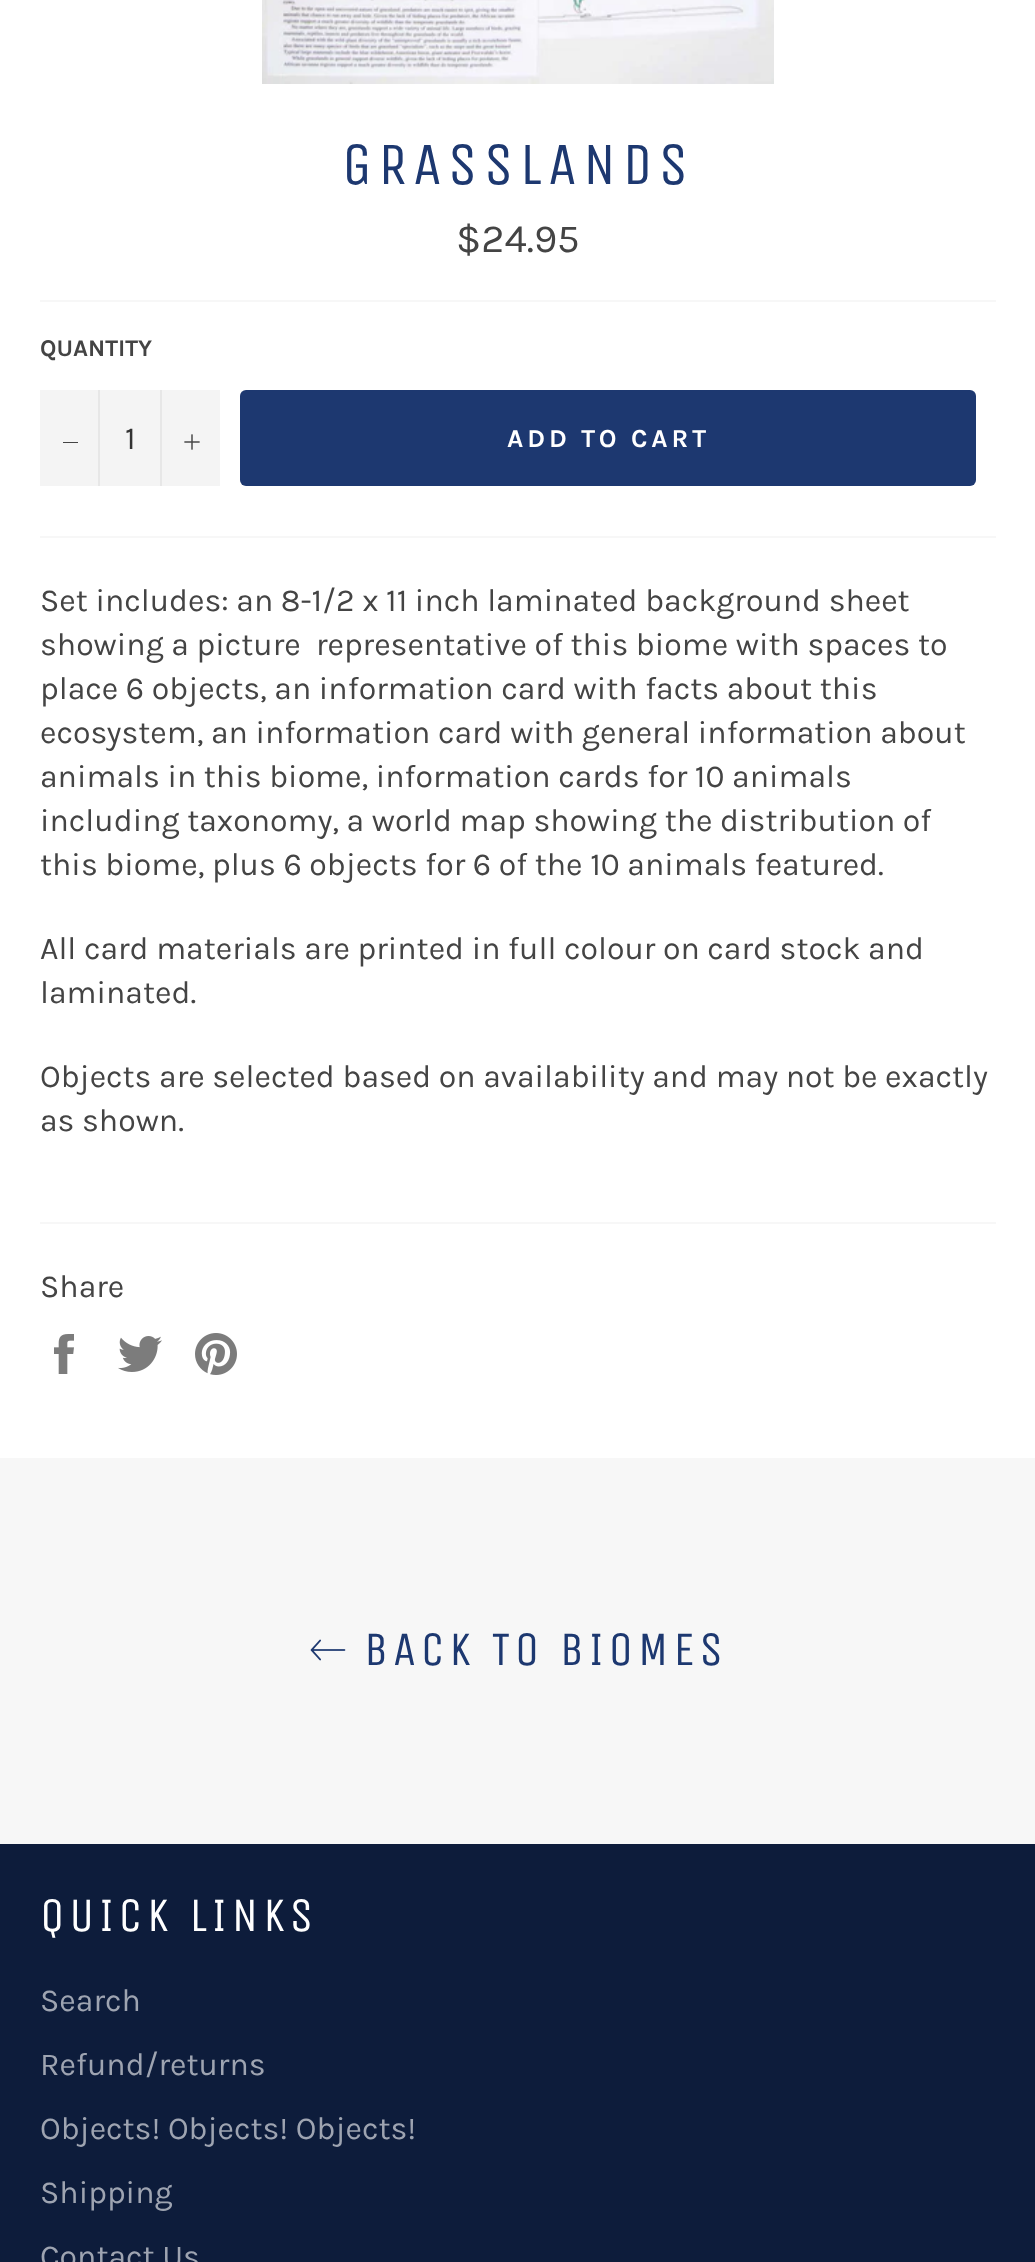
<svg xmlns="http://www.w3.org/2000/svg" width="1035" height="2262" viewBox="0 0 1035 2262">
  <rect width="100%" height="100%" fill="rgb(255,255,255)"/>
  <image x="262" y="0" width="512" height="84" href="pic1.png"/>
  <text x="342" y="184" font-family="Unica One" font-size="60" letter-spacing="6" fill="rgb(29,56,112)">GRASSLANDS</text>
  <text x="456" y="252" font-family="Karla" font-size="40" fill="rgb(68,68,68)">$24.95</text>
  <rect x="40" y="300" width="956" height="2" fill="rgb(247,247,247)"/>
  <text x="40" y="356" font-family="Karla" font-size="24" font-weight="bold" fill="rgb(68,68,68)">QUANTITY</text>
  <rect x="40" y="390" width="180" height="96" fill="rgb(244,244,244)"/>
  <rect x="98" y="390" width="2" height="96" fill="rgb(231,231,231)"/>
  <rect x="63" y="442" width="15" height="1" fill="rgb(68,68,68)"/>
  <text x="125" y="449" font-family="Karla" font-size="32" fill="rgb(51,51,51)">1</text>
  <rect x="160" y="390" width="2" height="96" fill="rgb(231,231,231)"/>
  <image x="184" y="434" width="16" height="16" href="pic2.png"/>
  <rect x="240" y="390" width="736" height="96" rx="6" fill="rgb(29,56,112)"/>
  <text x="507" y="447" font-family="Karla" font-size="26" font-weight="bold" letter-spacing="3.9" fill="rgb(255,255,255)">ADD TO CART</text>
  <rect x="40" y="536" width="956" height="2" fill="rgb(247,247,247)"/>
  <g font-family="Karla" font-size="32" fill="rgb(68,68,68)">
    <text xml:space="preserve"><tspan x="40" y="611">Set includes: an 8-1/2 x 11 inch laminated background sheet</tspan><tspan x="40" y="655">showing a picture  representative of this biome with spaces to</tspan><tspan x="40" y="699">place 6 objects, an information card with facts about this</tspan><tspan x="40" y="743">ecosystem, an information card with general information about</tspan><tspan x="40" y="787">animals in this biome, information cards for 10 animals</tspan><tspan x="40" y="831">including taxonomy, a world map showing the distribution of</tspan><tspan x="40" y="875">this biome, plus 6 objects for 6 of the 10 animals featured.</tspan></text>
    <text>
      <tspan x="40" y="959">All card materials are printed in full colour on card stock and</tspan>
      <tspan x="40" y="1003">laminated.</tspan>
    </text>
    <text>
      <tspan x="40" y="1087">Objects are selected based on availability and may not be exactly</tspan>
      <tspan x="40" y="1131">as shown.</tspan>
    </text>
  </g>
  <rect x="40" y="1222" width="956" height="2" fill="rgb(247,247,247)"/>
  <text x="40" y="1297" font-family="Karla" font-size="32" fill="rgb(68,68,68)">Share</text>
  <image x="54" y="1334" width="20" height="40" href="pic3.png"/>
  <image x="118" y="1336" width="44" height="36" href="pic4.png"/>
  <image x="195" y="1333" width="42" height="42" href="pic5.png"/>
  <rect x="0" y="1458" width="1035" height="386" fill="rgb(247,247,247)"/>
  <image x="310" y="1639" width="36" height="22" href="pic6.png"/>
  <text x="364" y="1665" font-family="Unica One" font-size="48" letter-spacing="4.75" fill="rgb(29,56,112)">BACK TO BIOMES</text>
  <rect x="0" y="1844" width="1035" height="418" fill="rgb(13,28,59)"/>
  <text x="40" y="1931" font-family="Unica One" font-size="48" letter-spacing="4.75" fill="rgb(255,255,255)">QUICK LINKS</text>
  <g font-family="Karla" font-size="32" fill="rgb(158,164,177)">
    <text x="40" y="2011">Search</text>
    <text x="40" y="2075">Refund/returns</text>
    <text x="40" y="2139">Objects! Objects! Objects!</text>
    <text x="40" y="2203">Shipping</text>
    <text x="40" y="2267">Contact Us</text>
  </g>
</svg>
